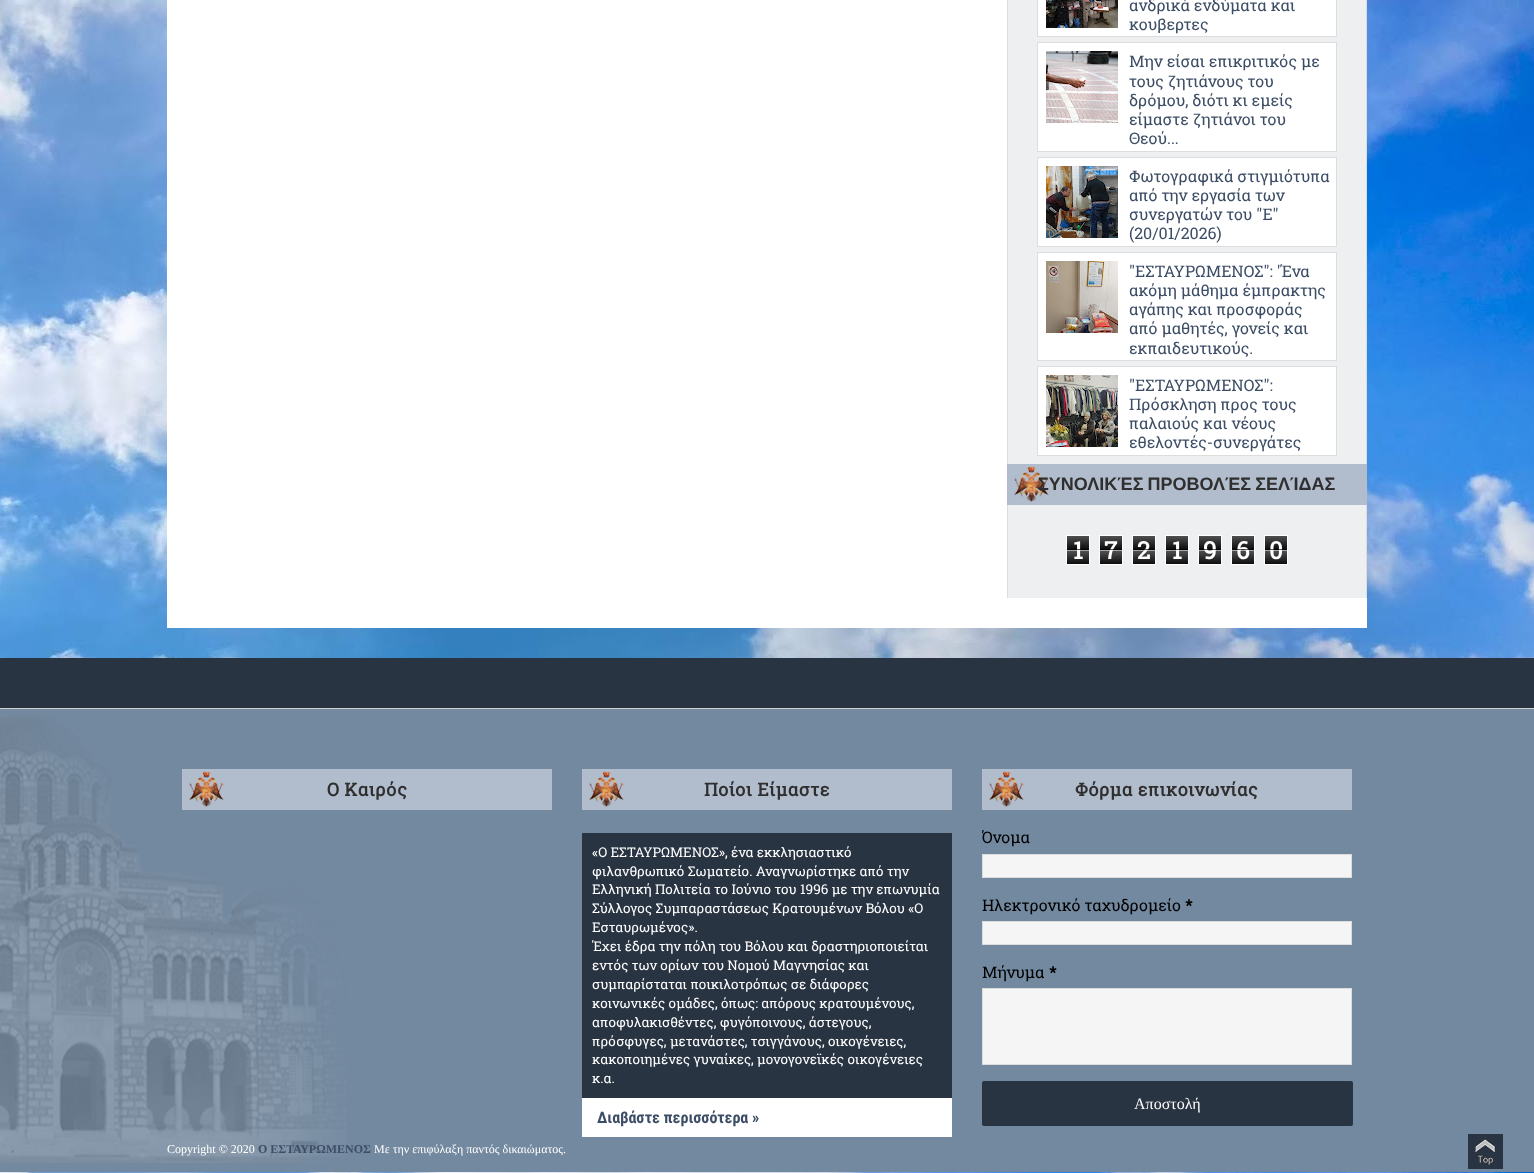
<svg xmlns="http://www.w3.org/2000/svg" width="1534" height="1173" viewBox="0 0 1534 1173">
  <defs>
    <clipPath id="clip1"><rect x="1007" y="0" width="360" height="598"/></clipPath>
  </defs>
  <rect width="100%" height="100%" fill="rgb(255,255,255)"/>
  <image x="0" y="0" width="1534" height="1173" href="pic1.png"/>
  <rect x="167" y="0" width="1200" height="628" fill="rgb(255,255,255)"/>
  <rect x="1008" y="0" width="358" height="598" fill="rgb(237,239,241)"/>
  <g clip-path="url(#clip1)">
    <rect x="1007.5" y="-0.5" width="359" height="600" fill="none" stroke="rgb(220,220,220)"/>
  </g>
  <rect x="1037.5" y="-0.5" width="299" height="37" fill="rgb(255,255,255)" stroke="rgb(221,221,221)"/>
  <image x="1046" y="0" width="72" height="28" href="pic2.png"/>
  <g font-family="Roboto Slab" font-size="16" fill="rgb(60,77,101)">
    <text>
      <tspan x="1129" y="11">ανδρικά ενδύματα και</tspan>
      <tspan x="1129" y="30">κουβερτες</tspan>
    </text>
  </g>
  <rect x="1037.5" y="42.5" width="299" height="109" fill="rgb(255,255,255)" stroke="rgb(221,221,221)"/>
  <image x="1046" y="51" width="72" height="72" href="pic3.png"/>
  <g font-family="Roboto Slab" font-size="16" fill="rgb(60,77,101)">
    <text>
      <tspan x="1129" y="67">Μην είσαι επικριτικός με</tspan>
      <tspan x="1129" y="87">τους ζητιάνους του</tspan>
      <tspan x="1129" y="106">δρόμου, διότι κι εμείς</tspan>
      <tspan x="1129" y="125">είμαστε ζητιάνοι του</tspan>
      <tspan x="1129" y="144">Θεού...</tspan>
    </text>
  </g>
  <rect x="1037.5" y="157.5" width="299" height="89" fill="rgb(255,255,255)" stroke="rgb(221,221,221)"/>
  <image x="1046" y="166" width="72" height="72" href="pic4.png"/>
  <g font-family="Roboto Slab" font-size="16" fill="rgb(60,77,101)">
    <text>
      <tspan x="1129" y="182">Φωτογραφικά στιγμιότυπα</tspan>
      <tspan x="1129" y="201">από την εργασία των</tspan>
      <tspan x="1129" y="220">συνεργατών του "Ε"</tspan>
      <tspan x="1129" y="239">(20/01/2026)</tspan>
    </text>
  </g>
  <rect x="1037.5" y="252.5" width="299" height="108" fill="rgb(255,255,255)" stroke="rgb(221,221,221)"/>
  <image x="1046" y="261" width="72" height="72" href="pic5.png"/>
  <g font-family="Roboto Slab" font-size="16" fill="rgb(60,77,101)">
    <text>
      <tspan x="1129" y="277">"ΕΣΤΑΥΡΩΜΕΝΟΣ": 'Ένα</tspan>
      <tspan x="1129" y="296">ακόμη μάθημα έμπρακτης</tspan>
      <tspan x="1129" y="315">αγάπης και προσφοράς</tspan>
      <tspan x="1129" y="334">από μαθητές, γονείς και</tspan>
      <tspan x="1129" y="354">εκπαιδευτικούς.</tspan>
    </text>
  </g>
  <rect x="1037.5" y="366.5" width="299" height="89" fill="rgb(255,255,255)" stroke="rgb(221,221,221)"/>
  <image x="1046" y="375" width="72" height="72" href="pic6.png"/>
  <g font-family="Roboto Slab" font-size="16" fill="rgb(60,77,101)">
    <text>
      <tspan x="1129" y="391">"ΕΣΤΑΥΡΩΜΕΝΟΣ":</tspan>
      <tspan x="1129" y="410">Πρόσκληση προς τους</tspan>
      <tspan x="1129" y="429">παλαιούς και νέους</tspan>
      <tspan x="1129" y="448">εθελοντές-συνεργάτες</tspan>
    </text>
  </g>
  <rect x="1007" y="464" width="360" height="41" fill="rgb(177,188,204)"/>
  <image x="1014" y="466" width="35" height="36" href="pic7.png"/>
  <text x="1038" y="490" word-spacing="-1" font-family="Liberation Sans" font-size="18" font-weight="bold" fill="rgb(47,47,47)">ΣΥΝΟΛΙΚΈΣ ΠΡΟΒΟΛΈΣ ΣΕΛΊΔΑΣ</text>
  <image x="1067" y="536" width="22" height="28" href="pic8.png"/>
  <rect x="1066.5" y="535.5" width="23" height="29" fill="none" stroke="rgb(255,255,255)"/>
  <text x="1073" y="559" font-family="Roboto Slab" font-size="24" font-weight="bold" fill="rgb(255,255,255)">1</text>
  <rect x="1067" y="549" width="22" height="1" fill="rgba(0,0,0,0.65)"/>
  <rect x="1067" y="550" width="22" height="1" fill="rgba(255,255,255,0.65)"/>
  <image x="1100" y="536" width="22" height="28" href="pic8.png"/>
  <rect x="1099.5" y="535.5" width="23" height="29" fill="none" stroke="rgb(255,255,255)"/>
  <text x="1104" y="559" font-family="Roboto Slab" font-size="24" font-weight="bold" fill="rgb(255,255,255)">7</text>
  <rect x="1100" y="549" width="22" height="1" fill="rgba(0,0,0,0.65)"/>
  <rect x="1100" y="550" width="22" height="1" fill="rgba(255,255,255,0.65)"/>
  <image x="1133" y="536" width="22" height="28" href="pic8.png"/>
  <rect x="1132.5" y="535.5" width="23" height="29" fill="none" stroke="rgb(255,255,255)"/>
  <text x="1137" y="559" font-family="Roboto Slab" font-size="24" font-weight="bold" fill="rgb(255,255,255)">2</text>
  <rect x="1133" y="549" width="22" height="1" fill="rgba(0,0,0,0.65)"/>
  <rect x="1133" y="550" width="22" height="1" fill="rgba(255,255,255,0.65)"/>
  <image x="1166" y="536" width="22" height="28" href="pic8.png"/>
  <rect x="1165.5" y="535.5" width="23" height="29" fill="none" stroke="rgb(255,255,255)"/>
  <text x="1172" y="559" font-family="Roboto Slab" font-size="24" font-weight="bold" fill="rgb(255,255,255)">1</text>
  <rect x="1166" y="549" width="22" height="1" fill="rgba(0,0,0,0.65)"/>
  <rect x="1166" y="550" width="22" height="1" fill="rgba(255,255,255,0.65)"/>
  <image x="1199" y="536" width="22" height="28" href="pic8.png"/>
  <rect x="1198.5" y="535.5" width="23" height="29" fill="none" stroke="rgb(255,255,255)"/>
  <text x="1203" y="559" font-family="Roboto Slab" font-size="24" font-weight="bold" fill="rgb(255,255,255)">9</text>
  <rect x="1199" y="549" width="22" height="1" fill="rgba(0,0,0,0.65)"/>
  <rect x="1199" y="550" width="22" height="1" fill="rgba(255,255,255,0.65)"/>
  <image x="1232" y="536" width="22" height="28" href="pic8.png"/>
  <rect x="1231.5" y="535.5" width="23" height="29" fill="none" stroke="rgb(255,255,255)"/>
  <text x="1236" y="559" font-family="Roboto Slab" font-size="24" font-weight="bold" fill="rgb(255,255,255)">6</text>
  <rect x="1232" y="549" width="22" height="1" fill="rgba(0,0,0,0.65)"/>
  <rect x="1232" y="550" width="22" height="1" fill="rgba(255,255,255,0.65)"/>
  <image x="1265" y="536" width="22" height="28" href="pic8.png"/>
  <rect x="1264.5" y="535.5" width="23" height="29" fill="none" stroke="rgb(255,255,255)"/>
  <text x="1269" y="559" font-family="Roboto Slab" font-size="24" font-weight="bold" fill="rgb(255,255,255)">0</text>
  <rect x="1265" y="549" width="22" height="1" fill="rgba(0,0,0,0.65)"/>
  <rect x="1265" y="550" width="22" height="1" fill="rgba(255,255,255,0.65)"/>
  <rect x="0" y="658" width="1534" height="50" fill="rgb(41,52,67)"/>
  <rect x="0" y="708" width="1534" height="1" fill="rgb(208,208,208)"/>
  <rect x="0" y="709" width="1534" height="463" fill="rgb(115,137,160)"/>
  <image x="0" y="715" width="347" height="448" href="pic9.png"/>
  <rect x="182" y="769" width="370" height="41" fill="rgb(177,188,204)"/>
  <image x="189" y="771" width="35" height="36" href="pic7.png"/>
  <text x="327" y="796" font-family="Roboto Slab" font-size="18" font-weight="bold" letter-spacing="0.5" fill="rgb(47,47,47)">Ο Καιρός</text>
  <rect x="582" y="769" width="370" height="41" fill="rgb(177,188,204)"/>
  <image x="589" y="771" width="35" height="36" href="pic7.png"/>
  <text x="704" y="796" font-family="Roboto Slab" font-size="18" font-weight="bold" letter-spacing="0.5" fill="rgb(47,47,47)">Ποίοι Είμαστε</text>
  <rect x="582" y="833" width="370" height="265" fill="rgb(41,52,67)"/>
  <g font-family="Roboto Slab" font-size="13.5" fill="rgb(255,255,255)">
    <text>
      <tspan x="592" y="857">«Ο ΕΣΤΑΥΡΩΜΕΝΟΣ», ένα εκκλησιαστικό</tspan>
      <tspan x="592" y="876">φιλανθρωπικό Σωματείο. Αναγνωρίστηκε από την</tspan>
      <tspan x="592" y="894">Ελληνική Πολιτεία το Ιούνιο του 1996 με την επωνυμία</tspan>
      <tspan x="592" y="913">Σύλλογος Συμπαραστάσεως Κρατουμένων Βόλου «Ο</tspan>
      <tspan x="592" y="932">Εσταυρωμένος».</tspan>
      <tspan x="592" y="951">Έχει έδρα την πόλη του Βόλου και δραστηριοποιείται</tspan>
      <tspan x="592" y="970">εντός των ορίων του Νομού Μαγνησίας και</tspan>
      <tspan x="592" y="989">συμπαρίσταται ποικιλοτρόπως σε διάφορες</tspan>
      <tspan x="592" y="1008">κοινωνικές ομάδες, όπως: απόρους κρατουμένους,</tspan>
      <tspan x="592" y="1027">αποφυλακισθέντες, φυγόποινους, άστεγους,</tspan>
      <tspan x="592" y="1046">πρόσφυγες, μετανάστες, τσιγγάνους, οικογένειες,</tspan>
      <tspan x="592" y="1064">κακοποιημένες γυναίκες, μονογονεϊκές οικογένειες</tspan>
      <tspan x="592" y="1083">κ.α.</tspan>
    </text>
  </g>
  <rect x="582" y="1098" width="370" height="39" fill="rgb(255,255,255)"/>
  <text x="597" y="1123" font-family="Roboto Condensed" font-size="16" font-weight="bold" fill="rgb(60,77,101)">Διαβάστε περισσότερα »</text>
  <rect x="982" y="769" width="370" height="41" fill="rgb(177,188,204)"/>
  <image x="989" y="771" width="35" height="36" href="pic7.png"/>
  <text x="1075" y="796" font-family="Roboto Slab" font-size="18" font-weight="bold" letter-spacing="0.5" fill="rgb(47,47,47)">Φόρμα επικοινωνίας</text>
  <text x="982" y="843" font-family="Roboto Slab" font-size="16" fill="rgb(0,0,0)">Όνομα</text>
  <rect x="982.5" y="854.5" width="369" height="23" fill="rgb(245,245,245)" stroke="rgb(220,220,220)"/>
  <text x="982" y="911" font-family="Roboto Slab" font-size="16" fill="rgb(0,0,0)">Ηλεκτρονικό ταχυδρομείο</text>
  <text x="1185" y="911" font-family="Roboto Slab" font-size="16" font-weight="bold" fill="rgb(0,0,0)">*</text>
  <rect x="982.5" y="921.5" width="369" height="23" fill="rgb(245,245,245)" stroke="rgb(220,220,220)"/>
  <text x="982" y="978" font-family="Roboto Slab" font-size="16" fill="rgb(0,0,0)">Μήνυμα</text>
  <text x="1049" y="978" font-family="Roboto Slab" font-size="16" font-weight="bold" fill="rgb(0,0,0)">*</text>
  <rect x="982.5" y="988.5" width="369" height="76" fill="rgb(245,245,245)" stroke="rgb(220,220,220)"/>
  <rect x="982" y="1081" width="371" height="45" rx="2" fill="rgb(41,52,67)"/>
  <text x="1134" y="1109" font-family="Liberation Serif" font-size="16" fill="rgb(255,255,255)">Αποστολή</text>
  <text x="167" y="1153" font-family="Liberation Serif" font-size="12" fill="rgb(255,255,255)">Copyright © 2020</text>
  <text x="258" y="1153" font-family="Liberation Serif" font-size="12" font-weight="bold" fill="rgb(60,77,101)">Ο ΕΣΤΑΥΡΩΜΕΝΟΣ</text>
  <text x="374" y="1153" font-family="Liberation Serif" font-size="12" fill="rgb(255,255,255)">Με την επιφύλαξη παντός δικαιώματος.</text>
  <image x="1468" y="1134" width="35" height="35" href="pic10.png"/>
</svg>
